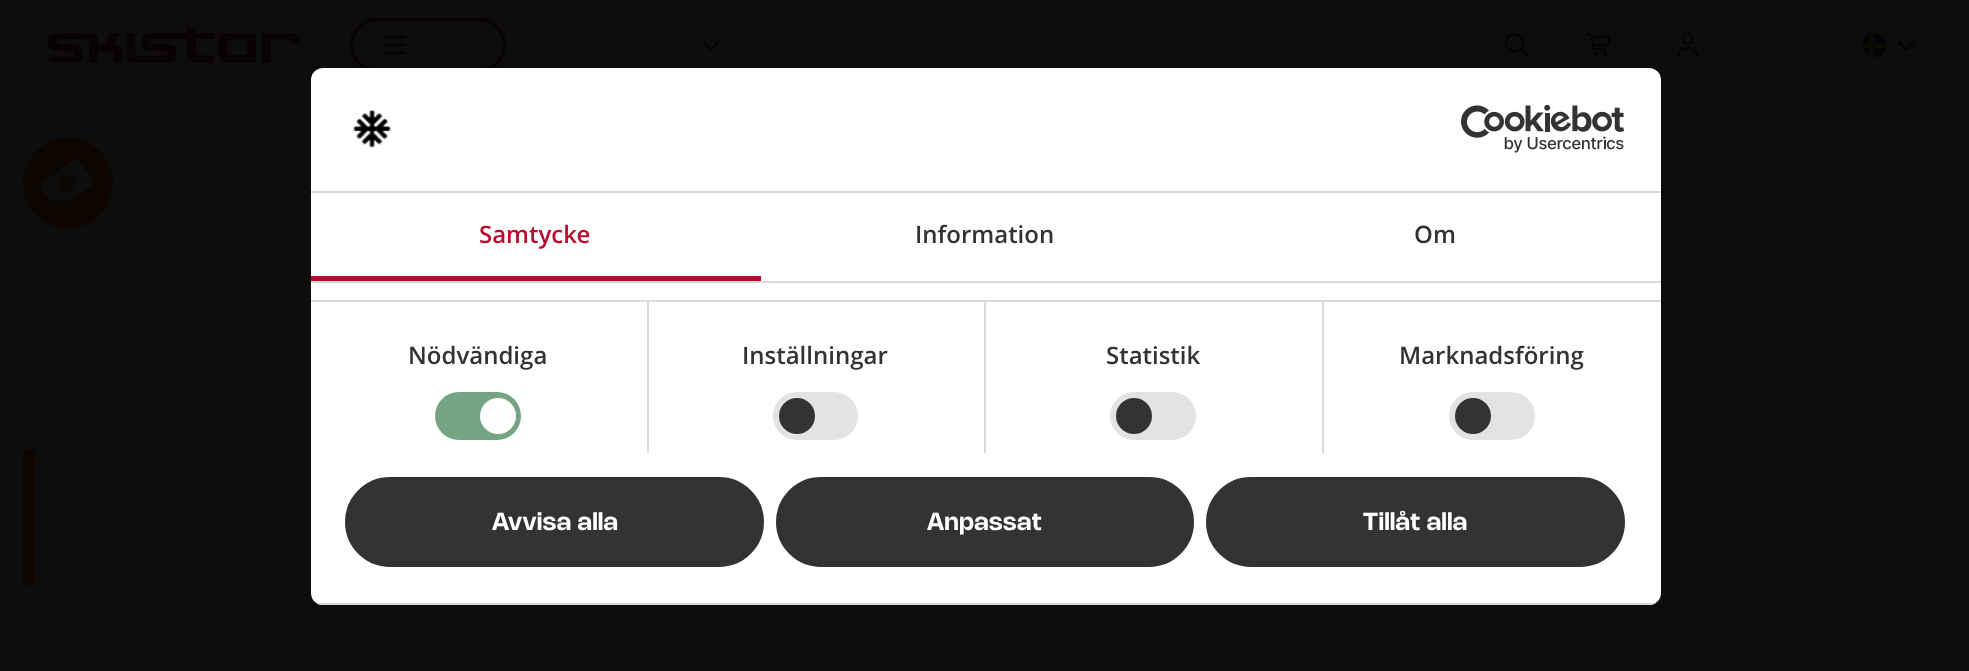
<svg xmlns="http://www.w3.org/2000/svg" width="1969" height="671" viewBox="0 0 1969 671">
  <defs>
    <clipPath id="clip1"><rect x="1862" y="33" width="24" height="24" rx="12"/></clipPath>
    <clipPath id="clip2"><rect x="311" y="68" width="1350" height="537" rx="12"/></clipPath>
  </defs>
  <rect width="100%" height="100%" fill="rgb(13,13,13)"/>
  <image x="48" y="27" width="252" height="36" href="pic1.png"/>
  <rect x="351.5" y="19.5" width="153" height="51" rx="25.5" fill="none" stroke="rgb(9,1,2)" stroke-width="3"/>
  <image x="384" y="36" width="21" height="18" href="pic2.png"/>
  <image x="702" y="40" width="18" height="11" href="pic3.png"/>
  <image x="1505" y="33" width="24" height="24" href="pic4.png"/>
  <image x="1587" y="33" width="24" height="23" href="pic5.png"/>
  <image x="1677" y="33" width="21" height="24" href="pic6.png"/>
  <circle cx="1874" cy="45" r="12" fill="rgb(0,4,7)"/>
  <g clip-path="url(#clip1)">
    <rect x="1869" y="33" width="5" height="24" fill="rgb(13,10,0)"/>
    <rect x="1862" y="43" width="24" height="5" fill="rgb(13,10,0)"/>
  </g>
  <image x="1897" y="40" width="19" height="11" href="pic7.png"/>
  <circle cx="68" cy="183" r="45" fill="rgb(13,5,0)"/>
  <image x="41" y="159" width="52" height="42" href="pic8.png"/>
  <rect x="23" y="450" width="12" height="135" fill="rgb(13,5,0)"/>
  <rect x="311" y="68" width="1350" height="537" rx="12" fill="rgb(255,255,255)"/>
  <rect x="311" y="191" width="1350" height="2" fill="rgb(217,217,217)"/>
  <image x="352" y="109" width="40" height="39" href="pic9.png"/>
  <image x="1461" y="105" width="163" height="48" href="pic10.png"/>
  <rect x="311" y="281" width="1350" height="2" fill="rgb(217,217,217)"/>
  <rect x="311" y="276" width="450" height="5" fill="rgb(186,12,47)"/>
  <text x="479" y="243" font-family="Open Sans" font-size="24" font-weight="600" fill="rgb(186,12,47)">Samtycke</text>
  <g font-family="Open Sans" font-size="24" font-weight="600" fill="rgb(51,51,51)">
    <text x="915" y="243">Information</text>
    <text x="1414" y="243">Om</text>
  </g>
  <rect x="311" y="300" width="1350" height="2" fill="rgb(217,217,217)"/>
  <rect x="647" y="302" width="2" height="151" fill="rgb(217,217,217)"/>
  <text x="408" y="364" font-family="Open Sans" font-size="24" font-weight="600" fill="rgb(51,51,51)">Nödvändiga</text>
  <rect x="435" y="392" width="86" height="48" rx="24" fill="rgb(116,164,129)"/>
  <circle cx="498" cy="416" r="18" fill="rgb(255,255,255)"/>
  <rect x="984" y="302" width="2" height="151" fill="rgb(217,217,217)"/>
  <text x="742" y="364" font-family="Open Sans" font-size="24" font-weight="600" fill="rgb(51,51,51)">Inställningar</text>
  <rect x="773" y="392" width="85" height="48" rx="24" fill="rgb(227,227,227)"/>
  <circle cx="797" cy="416" r="18" fill="rgb(51,51,51)"/>
  <rect x="1322" y="302" width="2" height="151" fill="rgb(217,217,217)"/>
  <text x="1106" y="364" font-family="Open Sans" font-size="24" font-weight="600" fill="rgb(51,51,51)">Statistik</text>
  <rect x="1110" y="392" width="86" height="48" rx="24" fill="rgb(227,227,227)"/>
  <circle cx="1134" cy="416" r="18" fill="rgb(51,51,51)"/>
  <text x="1399" y="364" font-family="Open Sans" font-size="24" font-weight="600" fill="rgb(51,51,51)">Marknadsföring</text>
  <rect x="1449" y="392" width="86" height="48" rx="24" fill="rgb(227,227,227)"/>
  <circle cx="1473" cy="416" r="18" fill="rgb(51,51,51)"/>
  <g clip-path="url(#clip2)">
    <rect x="311" y="603" width="1350" height="2" fill="rgb(217,217,217)"/>
  </g>
  <rect x="346.5" y="478.5" width="416" height="87" rx="43.5" fill="rgb(51,51,51)" stroke="rgb(51,51,51)" stroke-width="3"/>
  <text x="492" y="530" font-family="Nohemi" font-size="24" font-weight="600" letter-spacing="0.5" fill="rgb(255,255,255)">Avvisa alla</text>
  <rect x="777.5" y="478.5" width="415" height="87" rx="43.5" fill="rgb(51,51,51)" stroke="rgb(51,51,51)" stroke-width="3"/>
  <text x="927" y="530" font-family="Nohemi" font-size="24" font-weight="600" letter-spacing="0.5" fill="rgb(255,255,255)">Anpassat</text>
  <rect x="1207.5" y="478.5" width="416" height="87" rx="43.5" fill="rgb(51,51,51)" stroke="rgb(51,51,51)" stroke-width="3"/>
  <text x="1363" y="530" font-family="Nohemi" font-size="24" font-weight="600" letter-spacing="0.5" fill="rgb(255,255,255)">Tillåt alla</text>
</svg>
